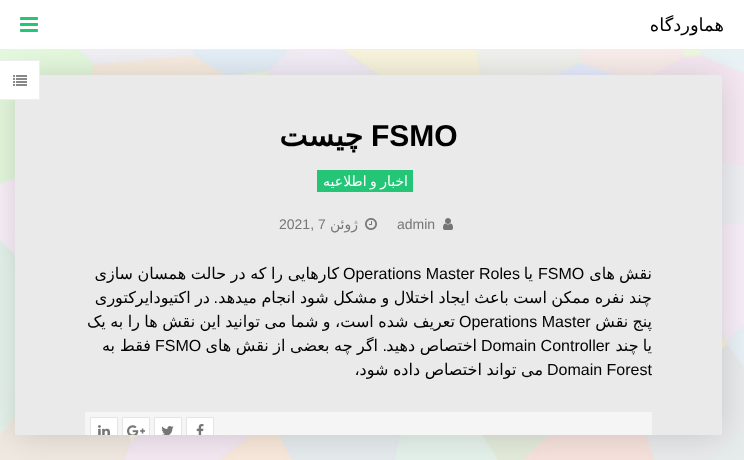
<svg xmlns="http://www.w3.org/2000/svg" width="744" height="460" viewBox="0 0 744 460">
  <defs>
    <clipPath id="clip1"><rect x="15" y="75" width="707" height="360"/></clipPath>
  </defs>
  <rect width="100%" height="100%" fill="rgb(255,255,255)"/>
  <image x="0" y="50" width="744" height="410" href="pic1.png"/>
  <rect x="15" y="76" width="707" height="360" fill="rgba(0,0,0,0.15)" filter="blur(16.5px)"/>
  <rect x="0" y="49" width="744" height="1" fill="rgb(238,238,238)"/>
  <text x="724" y="31" font-family="DejaVu Sans" font-size="18" direction="rtl" fill="rgb(0,0,0)">هماوردگاه</text>
  <image x="20" y="17" width="18" height="15" href="pic2.png"/>
  <rect x="15" y="75" width="707" height="360" fill="rgb(234,234,234)"/>
  <rect x="0" y="61" width="39" height="38" fill="rgb(255,255,255)"/>
  <rect x="0" y="60" width="40" height="1" fill="rgb(238,238,238)"/>
  <rect x="39" y="60" width="1" height="40" fill="rgb(238,238,238)"/>
  <rect x="0" y="99" width="40" height="1" fill="rgb(238,238,238)"/>
  <image x="13" y="75" width="14" height="11" href="pic3.png"/>
  <text x="371" y="146" font-family="Liberation Sans" font-size="30" font-weight="bold" fill="rgb(0,0,0)">FSMO</text>
  <text x="363" y="146" font-family="DejaVu Sans" font-size="30" font-weight="bold" direction="rtl" fill="rgb(0,0,0)">چیست</text>
  <rect x="317" y="170" width="96" height="22" fill="rgb(37,197,119)"/>
  <text x="408" y="186" word-spacing="-1" font-family="DejaVu Sans" font-size="14" direction="rtl" fill="rgb(255,255,255)">اخبار و اطلاعیه</text>
  <image x="443" y="218" width="10" height="12" href="pic4.png"/>
  <text x="397" y="229" font-family="Liberation Sans" font-size="14" fill="rgb(118,118,118)">admin</text>
  <image x="365" y="218" width="12" height="12" href="pic5.png"/>
  <text x="358" y="229" font-family="DejaVu Sans" font-size="14" direction="rtl" fill="rgb(118,118,118)">ژوئن</text>
  <text x="279" y="229" font-family="Liberation Sans" font-size="14" fill="rgb(118,118,118)">2021, 7</text>
  <text x="652" y="279" word-spacing="-1" font-family="DejaVu Sans" font-size="16" direction="rtl" fill="rgb(0,0,0)">نقش های</text>
  <text x="538" y="279" font-family="Liberation Sans" font-size="16" fill="rgb(0,0,0)">FSMO</text>
  <text x="533" y="279" font-family="DejaVu Sans" font-size="16" direction="rtl" fill="rgb(0,0,0)">یا</text>
  <text x="343" y="279" font-family="Liberation Sans" font-size="16" fill="rgb(0,0,0)">Operations Master Roles</text>
  <g font-family="DejaVu Sans" font-size="16" direction="rtl" fill="rgb(0,0,0)">
    <text x="339" y="279" word-spacing="-0.5">کارهایی را که در حالت همسان سازی</text>
    <text x="652" y="303" word-spacing="-0.6">چند نفره ممکن است باعث ایجاد اختلال و مشکل شود انجام میدهد</text>
  </g>
  <text x="218" y="303" font-family="Liberation Sans" font-size="16" direction="rtl" fill="rgb(0,0,0)">.</text>
  <g font-family="DejaVu Sans" font-size="16" direction="rtl" fill="rgb(0,0,0)">
    <text x="210" y="303" word-spacing="-0.6">در اکتیودایرکتوری</text>
    <text x="652" y="327" word-spacing="-1">پنج نقش</text>
    <text x="455" y="327" word-spacing="-0.6">تعریف شده است، و شما می توانید این نقش ها را به یک</text>
  </g>
  <text x="459" y="327" font-family="Liberation Sans" font-size="16" fill="rgb(0,0,0)">Operations Master</text>
  <text x="652" y="351" word-spacing="-1" font-family="DejaVu Sans" font-size="16" direction="rtl" fill="rgb(0,0,0)">یا چند</text>
  <text x="481" y="351" font-family="Liberation Sans" font-size="16" fill="rgb(0,0,0)">Domain Controller</text>
  <text x="477" y="351" word-spacing="-0.5" font-family="DejaVu Sans" font-size="16" direction="rtl" fill="rgb(0,0,0)">اختصاص دهید</text>
  <text x="387" y="351" font-family="Liberation Sans" font-size="16" direction="rtl" fill="rgb(0,0,0)">.</text>
  <text x="378" y="351" word-spacing="-0.5" font-family="DejaVu Sans" font-size="16" direction="rtl" fill="rgb(0,0,0)">اگر چه بعضی از نقش های</text>
  <text x="155" y="351" font-family="Liberation Sans" font-size="16" fill="rgb(0,0,0)">FSMO</text>
  <text x="151" y="351" font-family="DejaVu Sans" font-size="16" direction="rtl" fill="rgb(0,0,0)">فقط به</text>
  <text x="547" y="375" font-family="Liberation Sans" font-size="16" fill="rgb(0,0,0)">Domain Forest</text>
  <text x="543" y="375" word-spacing="-0.5" font-family="DejaVu Sans" font-size="16" direction="rtl" fill="rgb(0,0,0)">می تواند اختصاص داده شود،</text>
  <rect x="85" y="412" width="567" height="23" fill="rgb(245,245,245)"/>
  <rect x="187" y="418" width="26" height="17" fill="rgb(255,255,255)"/>
  <g clip-path="url(#clip1)">
    <rect x="186.5" y="417.5" width="27" height="27" fill="none" stroke="rgb(229,229,229)"/>
  </g>
  <image x="196" y="424" width="8" height="11" href="pic6.png"/>
  <rect x="155" y="418" width="26" height="17" fill="rgb(255,255,255)"/>
  <g clip-path="url(#clip1)">
    <rect x="154.5" y="417.5" width="27" height="27" fill="none" stroke="rgb(229,229,229)"/>
  </g>
  <image x="161" y="426" width="13" height="9" href="pic7.png"/>
  <rect x="123" y="418" width="26" height="17" fill="rgb(255,255,255)"/>
  <g clip-path="url(#clip1)">
    <rect x="122.5" y="417.5" width="27" height="27" fill="none" stroke="rgb(229,229,229)"/>
  </g>
  <image x="127" y="425" width="18" height="10" href="pic8.png"/>
  <rect x="91" y="418" width="26" height="17" fill="rgb(255,255,255)"/>
  <g clip-path="url(#clip1)">
    <rect x="90.5" y="417.5" width="27" height="27" fill="none" stroke="rgb(229,229,229)"/>
  </g>
  <image x="98" y="425" width="12" height="10" href="pic9.png"/>
</svg>
